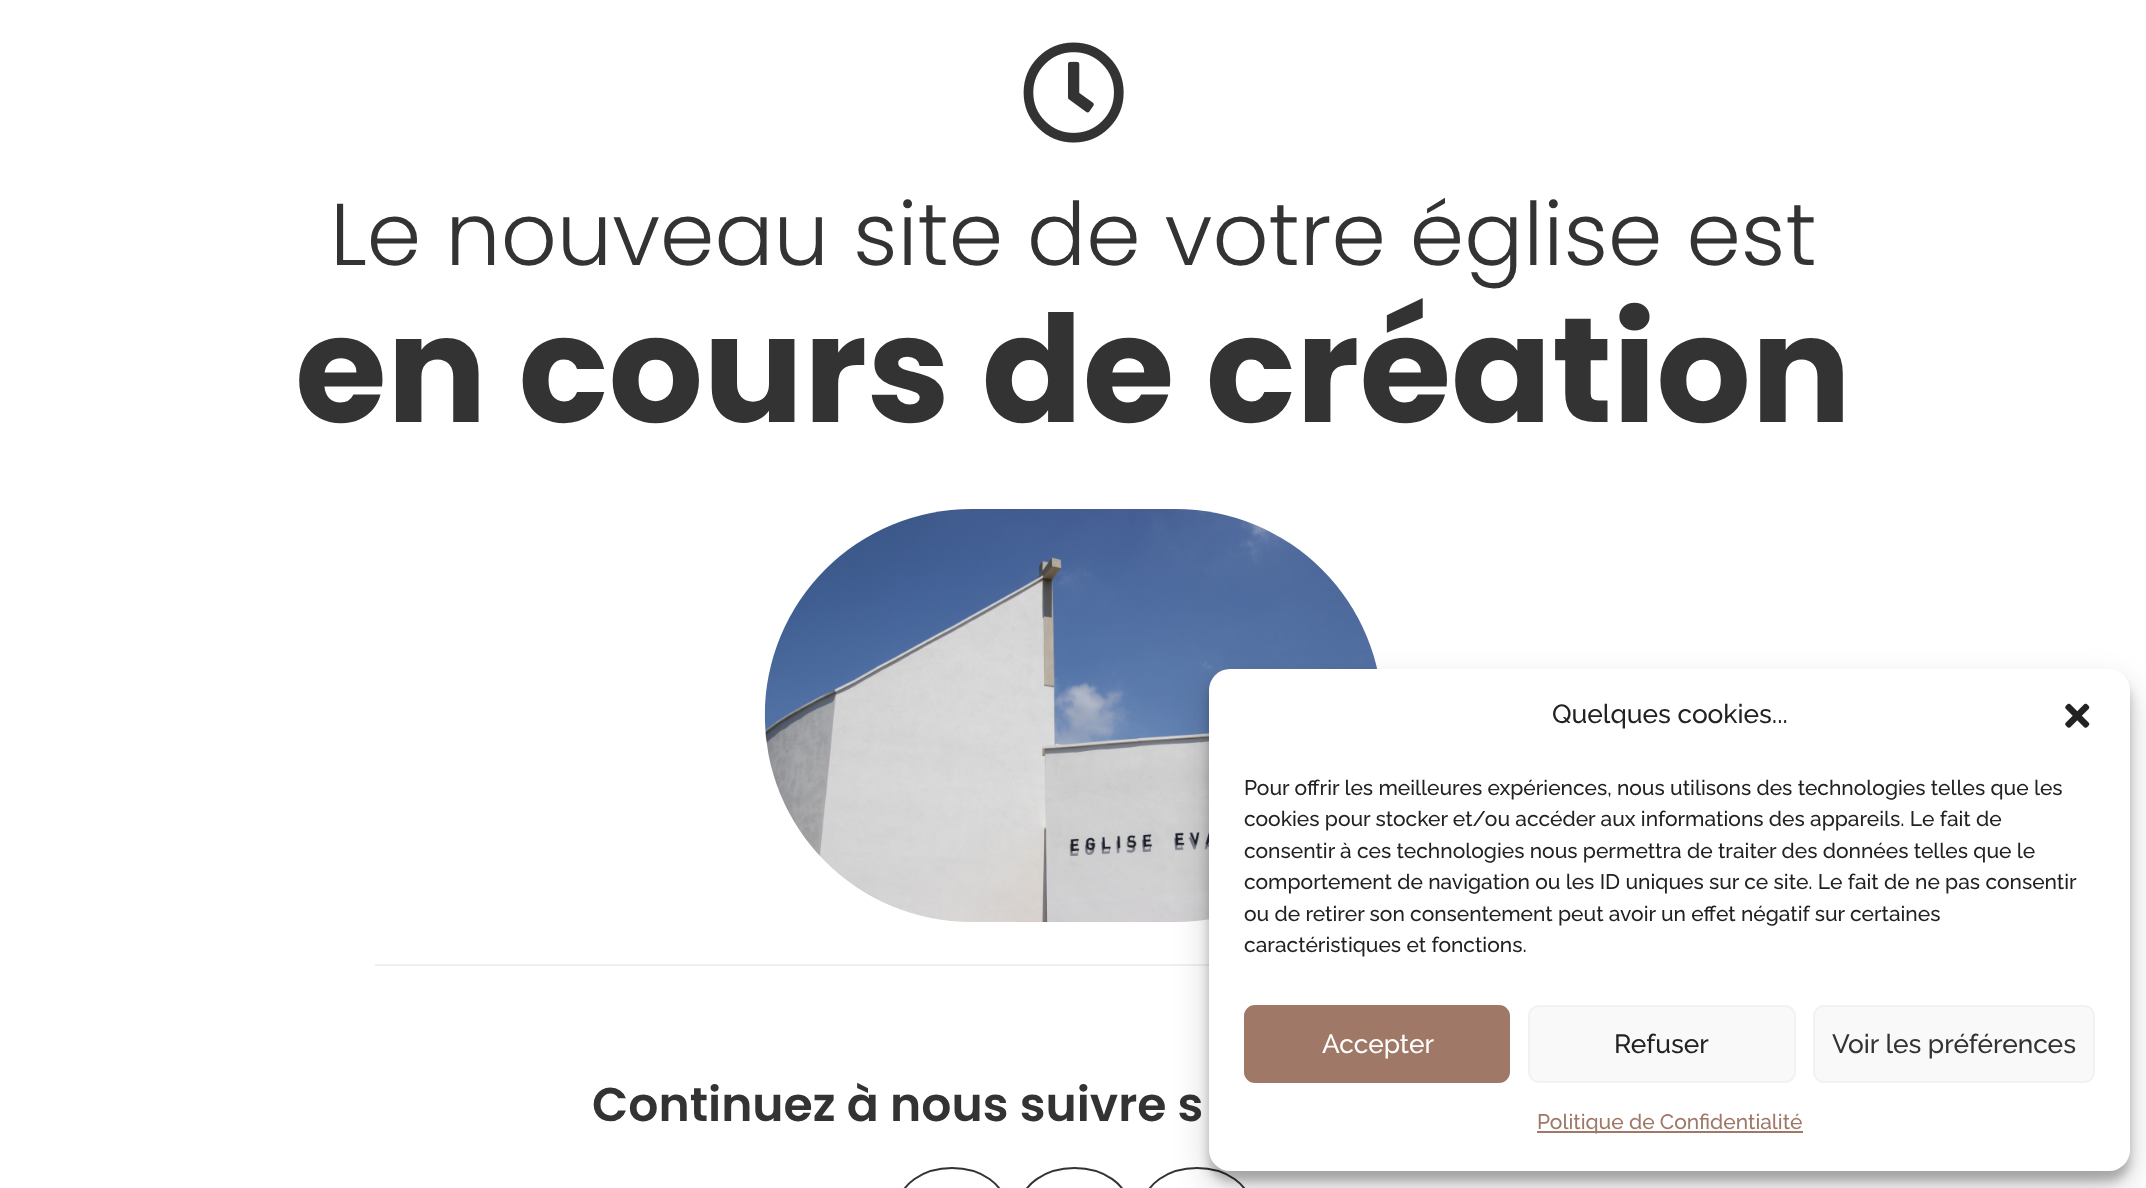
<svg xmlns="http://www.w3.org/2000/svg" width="2146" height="1188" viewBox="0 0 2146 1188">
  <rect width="100%" height="100%" fill="rgb(255,255,255)"/>
  <image x="1023" y="42" width="101" height="101" href="pic1.png"/>
  <text x="330" y="265" font-family="Poppins" font-size="87.5" font-weight="300" fill="rgb(51,51,51)">Le nouveau site de votre église est</text>
  <text x="295" y="422" font-family="Poppins" font-size="148.75" font-weight="bold" fill="rgb(51,51,51)">en cours de création</text>
  <image x="764" y="509" width="614" height="413" href="pic2.png"/>
  <rect x="375" y="964" width="834" height="2" fill="rgb(239,239,239)"/>
  <text x="592" y="1121" font-family="Poppins" font-size="47.25" font-weight="600" fill="rgb(51,51,51)">Continuez à nous suivre s</text>
  <rect x="899" y="1168" width="106" height="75" rx="53" fill="none" stroke="rgb(51,51,51)" stroke-width="2"/>
  <rect x="1021" y="1168" width="107" height="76" rx="53.5" fill="none" stroke="rgb(51,51,51)" stroke-width="2"/>
  <rect x="1144" y="1168" width="106" height="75" rx="53" fill="none" stroke="rgb(51,51,51)" stroke-width="2"/>
  <rect x="1209" y="679" width="921" height="502" rx="21" fill="rgba(0,0,0,0.23)" filter="blur(5px)"/>
  <rect x="1209" y="686" width="921" height="502" rx="21" fill="rgba(0,0,0,0.19)" filter="blur(17.5px)"/>
  <rect x="1209" y="669" width="921" height="502" rx="21" fill="rgb(255,255,255)"/>
  <text x="1552" y="723" font-family="Raleway" font-size="26.25" font-weight="500" fill="rgb(34,34,34)">Quelques cookies...</text>
  <image x="2065" y="703" width="25" height="25" href="pic3.png"/>
  <g font-family="Raleway" font-size="21" font-weight="500" fill="rgb(34,34,34)">
    <text>
      <tspan x="1244" y="795">Pour offrir les meilleures expériences, nous utilisons des technologies telles que les</tspan>
      <tspan x="1244" y="826">cookies pour stocker et/ou accéder aux informations des appareils. Le fait de</tspan>
      <tspan x="1244" y="858">consentir à ces technologies nous permettra de traiter des données telles que le</tspan>
      <tspan x="1244" y="889">comportement de navigation ou les ID uniques sur ce site. Le fait de ne pas consentir</tspan>
      <tspan x="1244" y="921">ou de retirer son consentement peut avoir un effet négatif sur certaines</tspan>
      <tspan x="1244" y="952">caractéristiques et fonctions.</tspan>
    </text>
  </g>
  <rect x="1245" y="1006" width="264" height="76" rx="10" fill="rgb(159,120,103)" stroke="rgb(159,120,103)" stroke-width="2"/>
  <text x="1322" y="1053" font-family="Raleway" font-size="26.25" font-weight="500" fill="rgb(255,255,255)">Accepter</text>
  <rect x="1529" y="1006" width="266" height="76" rx="10" fill="rgb(249,249,249)" stroke="rgb(242,242,242)" stroke-width="2"/>
  <text x="1614" y="1053" font-family="Raleway" font-size="26.25" font-weight="500" fill="rgb(34,34,34)">Refuser</text>
  <rect x="1814" y="1006" width="280" height="76" rx="10" fill="rgb(249,249,249)" stroke="rgb(242,242,242)" stroke-width="2"/>
  <text x="1832" y="1053" font-family="Raleway" font-size="26.25" font-weight="500" fill="rgb(51,51,51)">Voir les préférences</text>
  <rect x="1537" y="1131" width="266" height="2" fill="rgb(159,120,103)"/>
  <text x="1537" y="1129" font-family="Raleway" font-size="21" font-weight="500" fill="rgb(159,120,103)">Politique de Confidentialité</text>
</svg>
